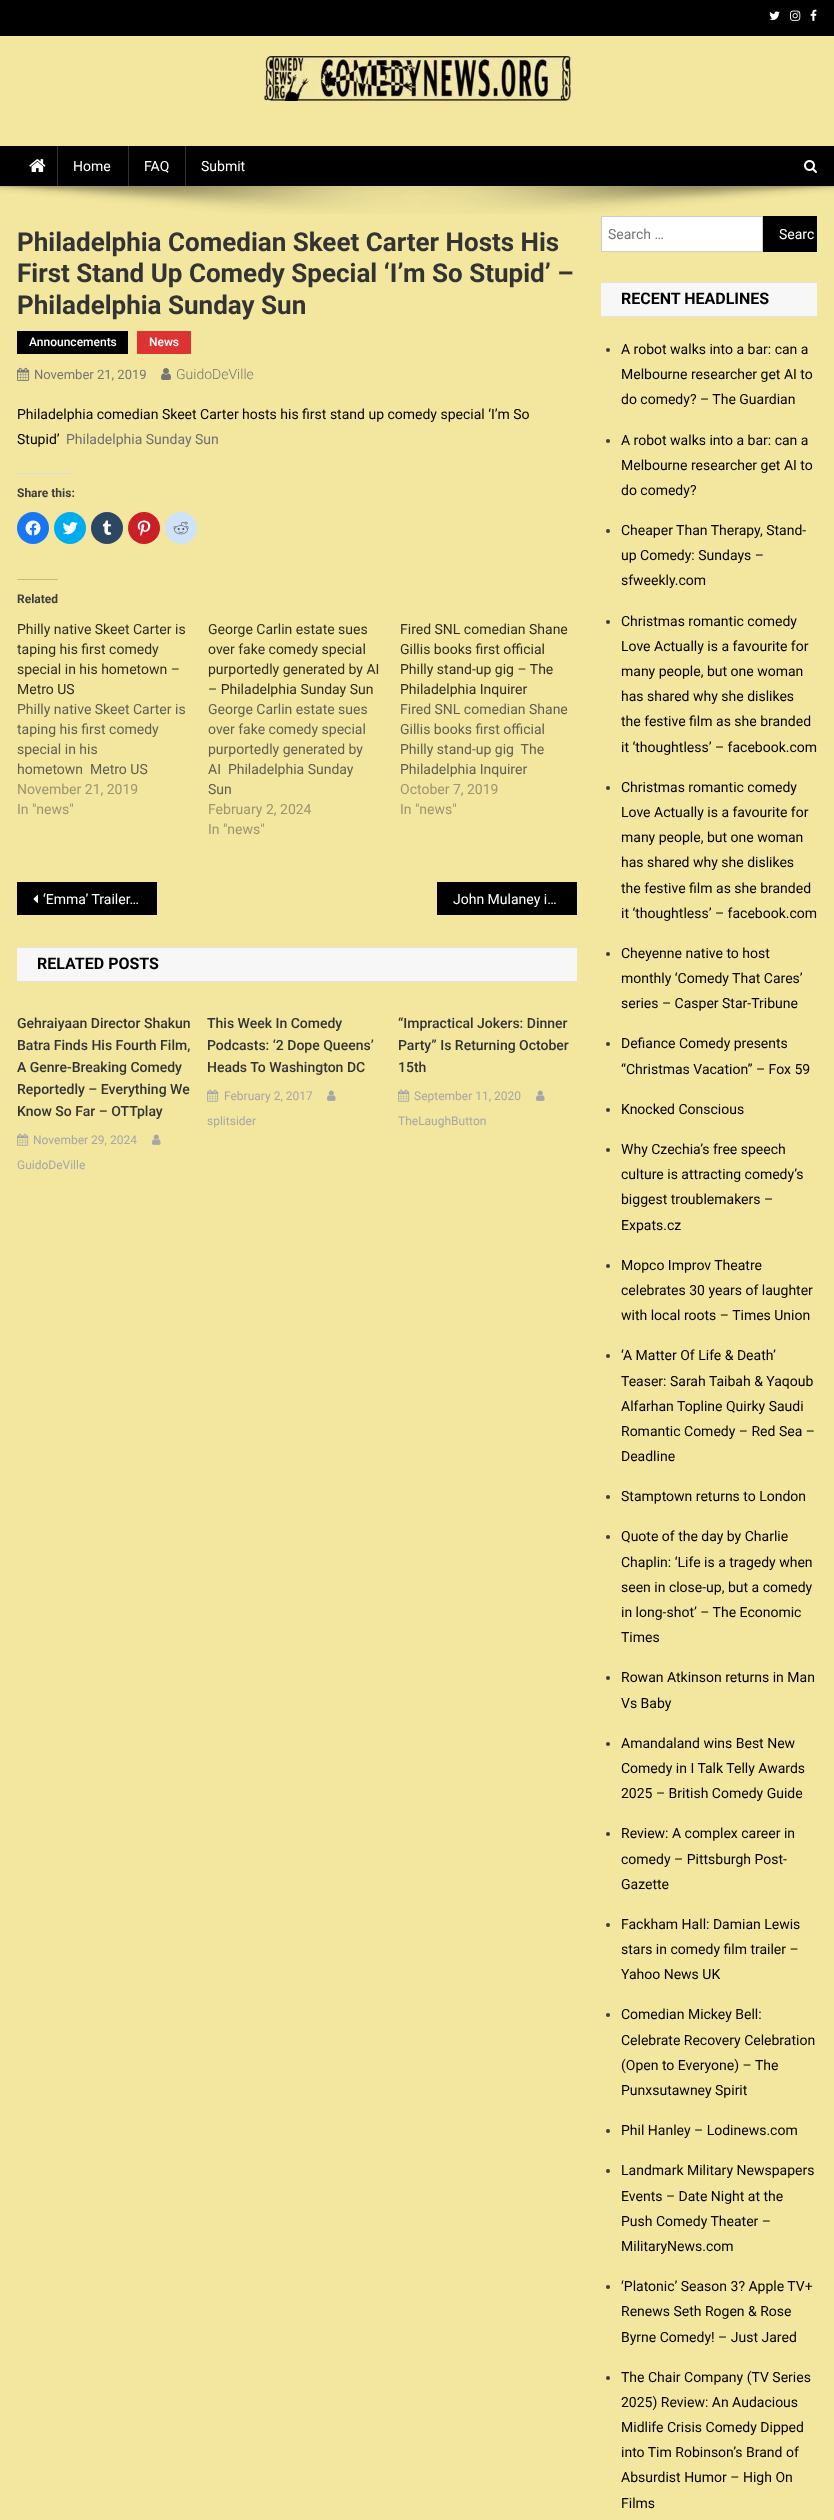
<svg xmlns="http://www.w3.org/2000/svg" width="834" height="2520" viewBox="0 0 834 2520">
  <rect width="100%" height="100%" fill="rgb(243,231,159)"/>
  <rect x="0" y="0" width="834" height="36" fill="rgb(0,0,0)"/>
  <image x="769" y="11" width="11" height="9" href="pic1.png"/>
  <image x="790" y="10" width="11" height="11" href="pic2.png"/>
  <image x="810" y="9" width="7" height="12" href="pic3.png"/>
  <image x="264" y="56" width="307" height="45" href="pic4.png"/>
  <rect x="0" y="146" width="834" height="40" fill="rgb(0,0,0)"/>
  <image x="29" y="159" width="17" height="13" href="pic5.png"/>
  <rect x="57" y="146" width="1" height="40" fill="rgb(51,51,51)"/>
  <text x="73" y="171" font-family="Roboto" font-size="14" fill="rgb(255,255,255)">Home</text>
  <rect x="128" y="146" width="1" height="40" fill="rgb(51,51,51)"/>
  <text x="144" y="171" font-family="Roboto" font-size="14" fill="rgb(255,255,255)">FAQ</text>
  <rect x="185" y="146" width="1" height="40" fill="rgb(51,51,51)"/>
  <text x="201" y="171" font-family="Roboto" font-size="14" fill="rgb(255,255,255)">Submit</text>
  <image x="804" y="160" width="13" height="13" href="pic6.png"/>
  <image x="0" y="186" width="834" height="28" href="pic7.png"/>
  <g font-family="Roboto" font-size="26" font-weight="bold" fill="rgb(51,51,51)">
    <text>
      <tspan x="17" y="251">Philadelphia Comedian Skeet Carter Hosts His</tspan>
      <tspan x="17" y="282">First Stand Up Comedy Special ‘I’m So Stupid’ –</tspan>
      <tspan x="17" y="314">Philadelphia Sunday Sun</tspan>
    </text>
  </g>
  <rect x="17" y="331" width="111" height="23" fill="rgb(0,0,0)"/>
  <text x="29" y="346" font-family="Roboto" font-size="12" font-weight="500" fill="rgb(255,255,255)">Announcements</text>
  <rect x="137" y="331" width="54" height="23" fill="rgb(221,51,51)"/>
  <text x="149" y="346" font-family="Roboto" font-size="12" font-weight="500" fill="rgb(255,255,255)">News</text>
  <image x="17" y="367" width="13" height="14" href="pic8.png"/>
  <text x="34" y="379" font-family="Roboto" font-size="13" fill="rgb(118,118,118)">November 21, 2019</text>
  <image x="161" y="368" width="10" height="12" href="pic9.png"/>
  <text x="176" y="379" font-family="Roboto" font-size="14" font-weight="300" fill="rgb(118,118,118)">GuidoDeVille</text>
  <g font-family="Roboto" font-size="14" fill="rgb(0,0,0)">
    <text>
      <tspan x="17" y="419">Philadelphia comedian Skeet Carter hosts his first stand up comedy special ‘I’m So</tspan>
      <tspan x="17" y="444">Stupid’</tspan>
    </text>
  </g>
  <text x="66" y="444" font-family="Roboto" font-size="14" fill="rgb(111,111,111)">Philadelphia Sunday Sun</text>
  <rect x="17" y="473" width="57" height="1" fill="rgb(220,220,222)"/>
  <text x="17" y="497" font-family="Roboto" font-size="12" font-weight="bold" fill="rgb(61,61,61)">Share this:</text>
  <circle cx="33" cy="528" r="16" fill="rgb(24,119,242)"/>
  <image x="25" y="520" width="16" height="16" href="pic10.png"/>
  <circle cx="70" cy="528" r="16" fill="rgb(0,172,238)"/>
  <image x="62" y="522" width="16" height="13" href="pic11.png"/>
  <circle cx="107" cy="528" r="16" fill="rgb(44,71,98)"/>
  <image x="102" y="520" width="10" height="15" href="pic12.png"/>
  <circle cx="144" cy="528" r="16" fill="rgb(202,31,39)"/>
  <image x="137" y="520" width="14" height="16" href="pic13.png"/>
  <circle cx="181" cy="528" r="16" fill="rgb(206,227,248)"/>
  <image x="173" y="521" width="16" height="14" href="pic14.png"/>
  <rect x="17" y="579" width="41" height="1" fill="rgb(194,185,127)"/>
  <text x="17" y="603" font-family="Roboto" font-size="12" font-weight="bold" fill="rgb(61,61,61)">Related</text>
  <g font-family="Roboto" font-size="14" fill="rgb(49,46,32)">
    <text>
      <tspan x="17" y="634">Philly native Skeet Carter is</tspan>
      <tspan x="17" y="654">taping his first comedy</tspan>
      <tspan x="17" y="674">special in his hometown –</tspan>
      <tspan x="17" y="694">Metro US</tspan>
    </text>
  </g>
  <g font-family="Roboto" font-size="14" fill="rgb(97,95,81)">
    <text xml:space="preserve"><tspan x="17" y="714">Philly native Skeet Carter is</tspan><tspan x="17" y="734">taping his first comedy</tspan><tspan x="17" y="754">special in his</tspan><tspan x="17" y="774">hometown  Metro US</tspan></text>
  </g>
  <g font-family="Roboto" font-size="14" fill="rgb(156,149,112)">
    <text>
      <tspan x="17" y="794">November 21, 2019</tspan>
      <tspan x="17" y="814">In "news"</tspan>
    </text>
  </g>
  <g font-family="Roboto" font-size="14" fill="rgb(49,46,32)">
    <text>
      <tspan x="208" y="634">George Carlin estate sues</tspan>
      <tspan x="208" y="654">over fake comedy special</tspan>
      <tspan x="208" y="674">purportedly generated by AI</tspan>
      <tspan x="208" y="694">– Philadelphia Sunday Sun</tspan>
    </text>
  </g>
  <g font-family="Roboto" font-size="14" fill="rgb(97,95,81)">
    <text xml:space="preserve"><tspan x="208" y="714">George Carlin estate sues</tspan><tspan x="208" y="734">over fake comedy special</tspan><tspan x="208" y="754">purportedly generated by</tspan><tspan x="208" y="774">AI  Philadelphia Sunday</tspan><tspan x="208" y="794">Sun</tspan></text>
  </g>
  <g font-family="Roboto" font-size="14" fill="rgb(156,149,112)">
    <text>
      <tspan x="208" y="814">February 2, 2024</tspan>
      <tspan x="208" y="834">In "news"</tspan>
    </text>
  </g>
  <g font-family="Roboto" font-size="14" fill="rgb(49,46,32)">
    <text>
      <tspan x="400" y="634">Fired SNL comedian Shane</tspan>
      <tspan x="400" y="654">Gillis books first official</tspan>
      <tspan x="400" y="674">Philly stand-up gig – The</tspan>
      <tspan x="400" y="694">Philadelphia Inquirer</tspan>
    </text>
  </g>
  <g font-family="Roboto" font-size="14" fill="rgb(97,95,81)">
    <text xml:space="preserve"><tspan x="400" y="714">Fired SNL comedian Shane</tspan><tspan x="400" y="734">Gillis books first official</tspan><tspan x="400" y="754">Philly stand-up gig  The</tspan><tspan x="400" y="774">Philadelphia Inquirer</tspan></text>
  </g>
  <g font-family="Roboto" font-size="14" fill="rgb(156,149,112)">
    <text>
      <tspan x="400" y="794">October 7, 2019</tspan>
      <tspan x="400" y="814">In "news"</tspan>
    </text>
  </g>
  <rect x="17" y="882" width="140" height="33" fill="rgb(0,0,0)"/>
  <image x="33" y="895" width="5" height="8" href="pic15.png"/>
  <text x="43" y="904" font-family="Roboto" font-size="14" fill="rgb(255,255,255)">‘Emma’ Trailer…</text>
  <rect x="437" y="882" width="140" height="33" fill="rgb(0,0,0)"/>
  <text x="453" y="904" font-family="Roboto" font-size="14" fill="rgb(255,255,255)">John Mulaney i…</text>
  <rect x="17" y="948" width="560" height="33" fill="rgb(247,247,247)"/>
  <rect x="17" y="947" width="560" height="1" fill="rgb(225,225,225)"/>
  <rect x="17" y="981" width="560" height="1" fill="rgb(225,225,225)"/>
  <text x="37" y="969" font-family="Roboto" font-size="16" font-weight="bold" fill="rgb(0,0,0)">RELATED POSTS</text>
  <g font-family="Roboto" font-size="14" font-weight="500" fill="rgb(51,51,51)">
    <text>
      <tspan x="17" y="1028">Gehraiyaan Director Shakun</tspan>
      <tspan x="17" y="1050">Batra Finds His Fourth Film,</tspan>
      <tspan x="17" y="1072">A Genre-Breaking Comedy</tspan>
      <tspan x="17" y="1094">Reportedly – Everything We</tspan>
      <tspan x="17" y="1116">Know So Far – OTTplay</tspan>
    </text>
  </g>
  <image x="17" y="1133" width="12" height="13" href="pic16.png"/>
  <text x="33" y="1144" font-family="Roboto" font-size="12" fill="rgb(166,166,166)">November 29, 2024</text>
  <image x="152" y="1134" width="9" height="11" href="pic17.png"/>
  <text x="17" y="1169" font-family="Roboto" font-size="12" fill="rgb(166,166,166)">GuidoDeVille</text>
  <g font-family="Roboto" font-size="14" font-weight="500" fill="rgb(51,51,51)">
    <text>
      <tspan x="207" y="1028">This Week In Comedy</tspan>
      <tspan x="207" y="1050">Podcasts: ‘2 Dope Queens’</tspan>
      <tspan x="207" y="1072">Heads To Washington DC</tspan>
    </text>
  </g>
  <image x="207" y="1089" width="12" height="13" href="pic16.png"/>
  <text x="224" y="1100" font-family="Roboto" font-size="12" fill="rgb(166,166,166)">February 2, 2017</text>
  <image x="327" y="1090" width="9" height="11" href="pic17.png"/>
  <text x="207" y="1125" font-family="Roboto" font-size="12" fill="rgb(166,166,166)">splitsider</text>
  <g font-family="Roboto" font-size="14" font-weight="500" fill="rgb(51,51,51)">
    <text>
      <tspan x="398" y="1028">“Impractical Jokers: Dinner</tspan>
      <tspan x="398" y="1050">Party” Is Returning October</tspan>
      <tspan x="398" y="1072">15th</tspan>
    </text>
  </g>
  <image x="398" y="1089" width="12" height="13" href="pic16.png"/>
  <text x="414" y="1100" font-family="Roboto" font-size="12" fill="rgb(166,166,166)">September 11, 2020</text>
  <image x="536" y="1090" width="9" height="11" href="pic17.png"/>
  <text x="398" y="1125" font-family="Roboto" font-size="12" fill="rgb(166,166,166)">TheLaughButton</text>
  <rect x="601.5" y="216.5" width="161" height="35" fill="rgb(255,255,255)" stroke="rgb(204,204,204)"/>
  <text x="608" y="239" font-family="Roboto" font-size="14" fill="rgb(118,118,118)">Search …</text>
  <rect x="763" y="216" width="54" height="36" fill="rgb(0,0,0)"/>
  <text x="779" y="239" font-family="Roboto" font-size="14" fill="rgb(255,255,255)">Searc</text>
  <rect x="601" y="283" width="216" height="33" fill="rgb(247,247,247)"/>
  <rect x="601" y="282" width="216" height="1" fill="rgb(225,225,225)"/>
  <rect x="601" y="316" width="216" height="1" fill="rgb(225,225,225)"/>
  <text x="621" y="304" font-family="Roboto" font-size="16" font-weight="bold" fill="rgb(0,0,0)">RECENT HEADLINES</text>
  <circle cx="608" cy="350" r="2" fill="rgb(61,61,61)"/>
  <g font-family="Roboto" font-size="14" fill="rgb(0,0,0)">
    <text>
      <tspan x="621" y="354">A robot walks into a bar: can a</tspan>
      <tspan x="621" y="379">Melbourne researcher get AI to</tspan>
      <tspan x="621" y="404">do comedy? – The Guardian</tspan>
    </text>
  </g>
  <circle cx="608" cy="441" r="2" fill="rgb(61,61,61)"/>
  <g font-family="Roboto" font-size="14" fill="rgb(0,0,0)">
    <text>
      <tspan x="621" y="445">A robot walks into a bar: can a</tspan>
      <tspan x="621" y="470">Melbourne researcher get AI to</tspan>
      <tspan x="621" y="495">do comedy?</tspan>
    </text>
  </g>
  <circle cx="608" cy="531" r="2" fill="rgb(61,61,61)"/>
  <g font-family="Roboto" font-size="14" fill="rgb(0,0,0)">
    <text>
      <tspan x="621" y="535">Cheaper Than Therapy, Stand-</tspan>
      <tspan x="621" y="560">up Comedy: Sundays –</tspan>
      <tspan x="621" y="585">sfweekly.com</tspan>
    </text>
  </g>
  <circle cx="608" cy="622" r="2" fill="rgb(61,61,61)"/>
  <g font-family="Roboto" font-size="14" fill="rgb(0,0,0)">
    <text>
      <tspan x="621" y="626">Christmas romantic comedy</tspan>
      <tspan x="621" y="651">Love Actually is a favourite for</tspan>
      <tspan x="621" y="676">many people, but one woman</tspan>
      <tspan x="621" y="701">has shared why she dislikes</tspan>
      <tspan x="621" y="726">the festive film as she branded</tspan>
      <tspan x="621" y="752">it ‘thoughtless’ – facebook.com</tspan>
    </text>
  </g>
  <circle cx="608" cy="788" r="2" fill="rgb(61,61,61)"/>
  <g font-family="Roboto" font-size="14" fill="rgb(0,0,0)">
    <text>
      <tspan x="621" y="792">Christmas romantic comedy</tspan>
      <tspan x="621" y="817">Love Actually is a favourite for</tspan>
      <tspan x="621" y="842">many people, but one woman</tspan>
      <tspan x="621" y="867">has shared why she dislikes</tspan>
      <tspan x="621" y="893">the festive film as she branded</tspan>
      <tspan x="621" y="918">it ‘thoughtless’ – facebook.com</tspan>
    </text>
  </g>
  <circle cx="608" cy="954" r="2" fill="rgb(61,61,61)"/>
  <g font-family="Roboto" font-size="14" fill="rgb(0,0,0)">
    <text>
      <tspan x="621" y="958">Cheyenne native to host</tspan>
      <tspan x="621" y="983">monthly ‘Comedy That Cares’</tspan>
      <tspan x="621" y="1008">series – Casper Star-Tribune</tspan>
    </text>
  </g>
  <circle cx="608" cy="1044" r="2" fill="rgb(61,61,61)"/>
  <g font-family="Roboto" font-size="14" fill="rgb(0,0,0)">
    <text>
      <tspan x="621" y="1048">Defiance Comedy presents</tspan>
      <tspan x="621" y="1074">“Christmas Vacation” – Fox 59</tspan>
    </text>
  </g>
  <circle cx="608" cy="1110" r="2" fill="rgb(61,61,61)"/>
  <text x="621" y="1114" font-family="Roboto" font-size="14" fill="rgb(0,0,0)">Knocked Conscious</text>
  <circle cx="608" cy="1150" r="2" fill="rgb(61,61,61)"/>
  <g font-family="Roboto" font-size="14" fill="rgb(0,0,0)">
    <text>
      <tspan x="621" y="1154">Why Czechia’s free speech</tspan>
      <tspan x="621" y="1179">culture is attracting comedy’s</tspan>
      <tspan x="621" y="1204">biggest troublemakers –</tspan>
      <tspan x="621" y="1230">Expats.cz</tspan>
    </text>
  </g>
  <circle cx="608" cy="1266" r="2" fill="rgb(61,61,61)"/>
  <g font-family="Roboto" font-size="14" fill="rgb(0,0,0)">
    <text>
      <tspan x="621" y="1270">Mopco Improv Theatre</tspan>
      <tspan x="621" y="1295">celebrates 30 years of laughter</tspan>
      <tspan x="621" y="1320">with local roots – Times Union</tspan>
    </text>
  </g>
  <circle cx="608" cy="1356" r="2" fill="rgb(61,61,61)"/>
  <g font-family="Roboto" font-size="14" fill="rgb(0,0,0)">
    <text>
      <tspan x="621" y="1360">‘A Matter Of Life &amp; Death’</tspan>
      <tspan x="621" y="1386">Teaser: Sarah Taibah &amp; Yaqoub</tspan>
      <tspan x="621" y="1411">Alfarhan Topline Quirky Saudi</tspan>
      <tspan x="621" y="1436">Romantic Comedy – Red Sea –</tspan>
      <tspan x="621" y="1461">Deadline</tspan>
    </text>
  </g>
  <circle cx="608" cy="1497" r="2" fill="rgb(61,61,61)"/>
  <text x="621" y="1501" font-family="Roboto" font-size="14" fill="rgb(0,0,0)">Stamptown returns to London</text>
  <circle cx="608" cy="1537" r="2" fill="rgb(61,61,61)"/>
  <g font-family="Roboto" font-size="14" fill="rgb(0,0,0)">
    <text>
      <tspan x="621" y="1541">Quote of the day by Charlie</tspan>
      <tspan x="621" y="1567">Chaplin: ‘Life is a tragedy when</tspan>
      <tspan x="621" y="1592">seen in close-up, but a comedy</tspan>
      <tspan x="621" y="1617">in long-shot’ – The Economic</tspan>
      <tspan x="621" y="1642">Times</tspan>
    </text>
  </g>
  <circle cx="608" cy="1678" r="2" fill="rgb(61,61,61)"/>
  <g font-family="Roboto" font-size="14" fill="rgb(0,0,0)">
    <text>
      <tspan x="621" y="1682">Rowan Atkinson returns in Man</tspan>
      <tspan x="621" y="1708">Vs Baby</tspan>
    </text>
  </g>
  <circle cx="608" cy="1744" r="2" fill="rgb(61,61,61)"/>
  <g font-family="Roboto" font-size="14" fill="rgb(0,0,0)">
    <text>
      <tspan x="621" y="1748">Amandaland wins Best New</tspan>
      <tspan x="621" y="1773">Comedy in I Talk Telly Awards</tspan>
      <tspan x="621" y="1798">2025 – British Comedy Guide</tspan>
    </text>
  </g>
  <circle cx="608" cy="1834" r="2" fill="rgb(61,61,61)"/>
  <g font-family="Roboto" font-size="14" fill="rgb(0,0,0)">
    <text>
      <tspan x="621" y="1838">Review: A complex career in</tspan>
      <tspan x="621" y="1864">comedy – Pittsburgh Post-</tspan>
      <tspan x="621" y="1889">Gazette</tspan>
    </text>
  </g>
  <circle cx="608" cy="1925" r="2" fill="rgb(61,61,61)"/>
  <g font-family="Roboto" font-size="14" fill="rgb(0,0,0)">
    <text>
      <tspan x="621" y="1929">Fackham Hall: Damian Lewis</tspan>
      <tspan x="621" y="1954">stars in comedy film trailer –</tspan>
      <tspan x="621" y="1979">Yahoo News UK</tspan>
    </text>
  </g>
  <circle cx="608" cy="2015" r="2" fill="rgb(61,61,61)"/>
  <g font-family="Roboto" font-size="14" fill="rgb(0,0,0)">
    <text>
      <tspan x="621" y="2019">Comedian Mickey Bell:</tspan>
      <tspan x="621" y="2045">Celebrate Recovery Celebration</tspan>
      <tspan x="621" y="2070">(Open to Everyone) – The</tspan>
      <tspan x="621" y="2095">Punxsutawney Spirit</tspan>
    </text>
  </g>
  <circle cx="608" cy="2131" r="2" fill="rgb(61,61,61)"/>
  <text x="621" y="2135" font-family="Roboto" font-size="14" fill="rgb(0,0,0)">Phil Hanley – Lodinews.com</text>
  <circle cx="608" cy="2171" r="2" fill="rgb(61,61,61)"/>
  <g font-family="Roboto" font-size="14" fill="rgb(0,0,0)">
    <text>
      <tspan x="621" y="2175">Landmark Military Newspapers</tspan>
      <tspan x="621" y="2201">Events – Date Night at the</tspan>
      <tspan x="621" y="2226">Push Comedy Theater –</tspan>
      <tspan x="621" y="2251">MilitaryNews.com</tspan>
    </text>
  </g>
  <circle cx="608" cy="2287" r="2" fill="rgb(61,61,61)"/>
  <g font-family="Roboto" font-size="14" fill="rgb(0,0,0)">
    <text>
      <tspan x="621" y="2291">‘Platonic’ Season 3? Apple TV+</tspan>
      <tspan x="621" y="2316">Renews Seth Rogen &amp; Rose</tspan>
      <tspan x="621" y="2342">Byrne Comedy! – Just Jared</tspan>
    </text>
  </g>
  <circle cx="608" cy="2378" r="2" fill="rgb(61,61,61)"/>
  <g font-family="Roboto" font-size="14" fill="rgb(0,0,0)">
    <text>
      <tspan x="621" y="2382">The Chair Company (TV Series</tspan>
      <tspan x="621" y="2407">2025) Review: An Audacious</tspan>
      <tspan x="621" y="2432">Midlife Crisis Comedy Dipped</tspan>
      <tspan x="621" y="2457">into Tim Robinson’s Brand of</tspan>
      <tspan x="621" y="2482">Absurdist Humor – High On</tspan>
      <tspan x="621" y="2508">Films</tspan>
    </text>
  </g>
</svg>
